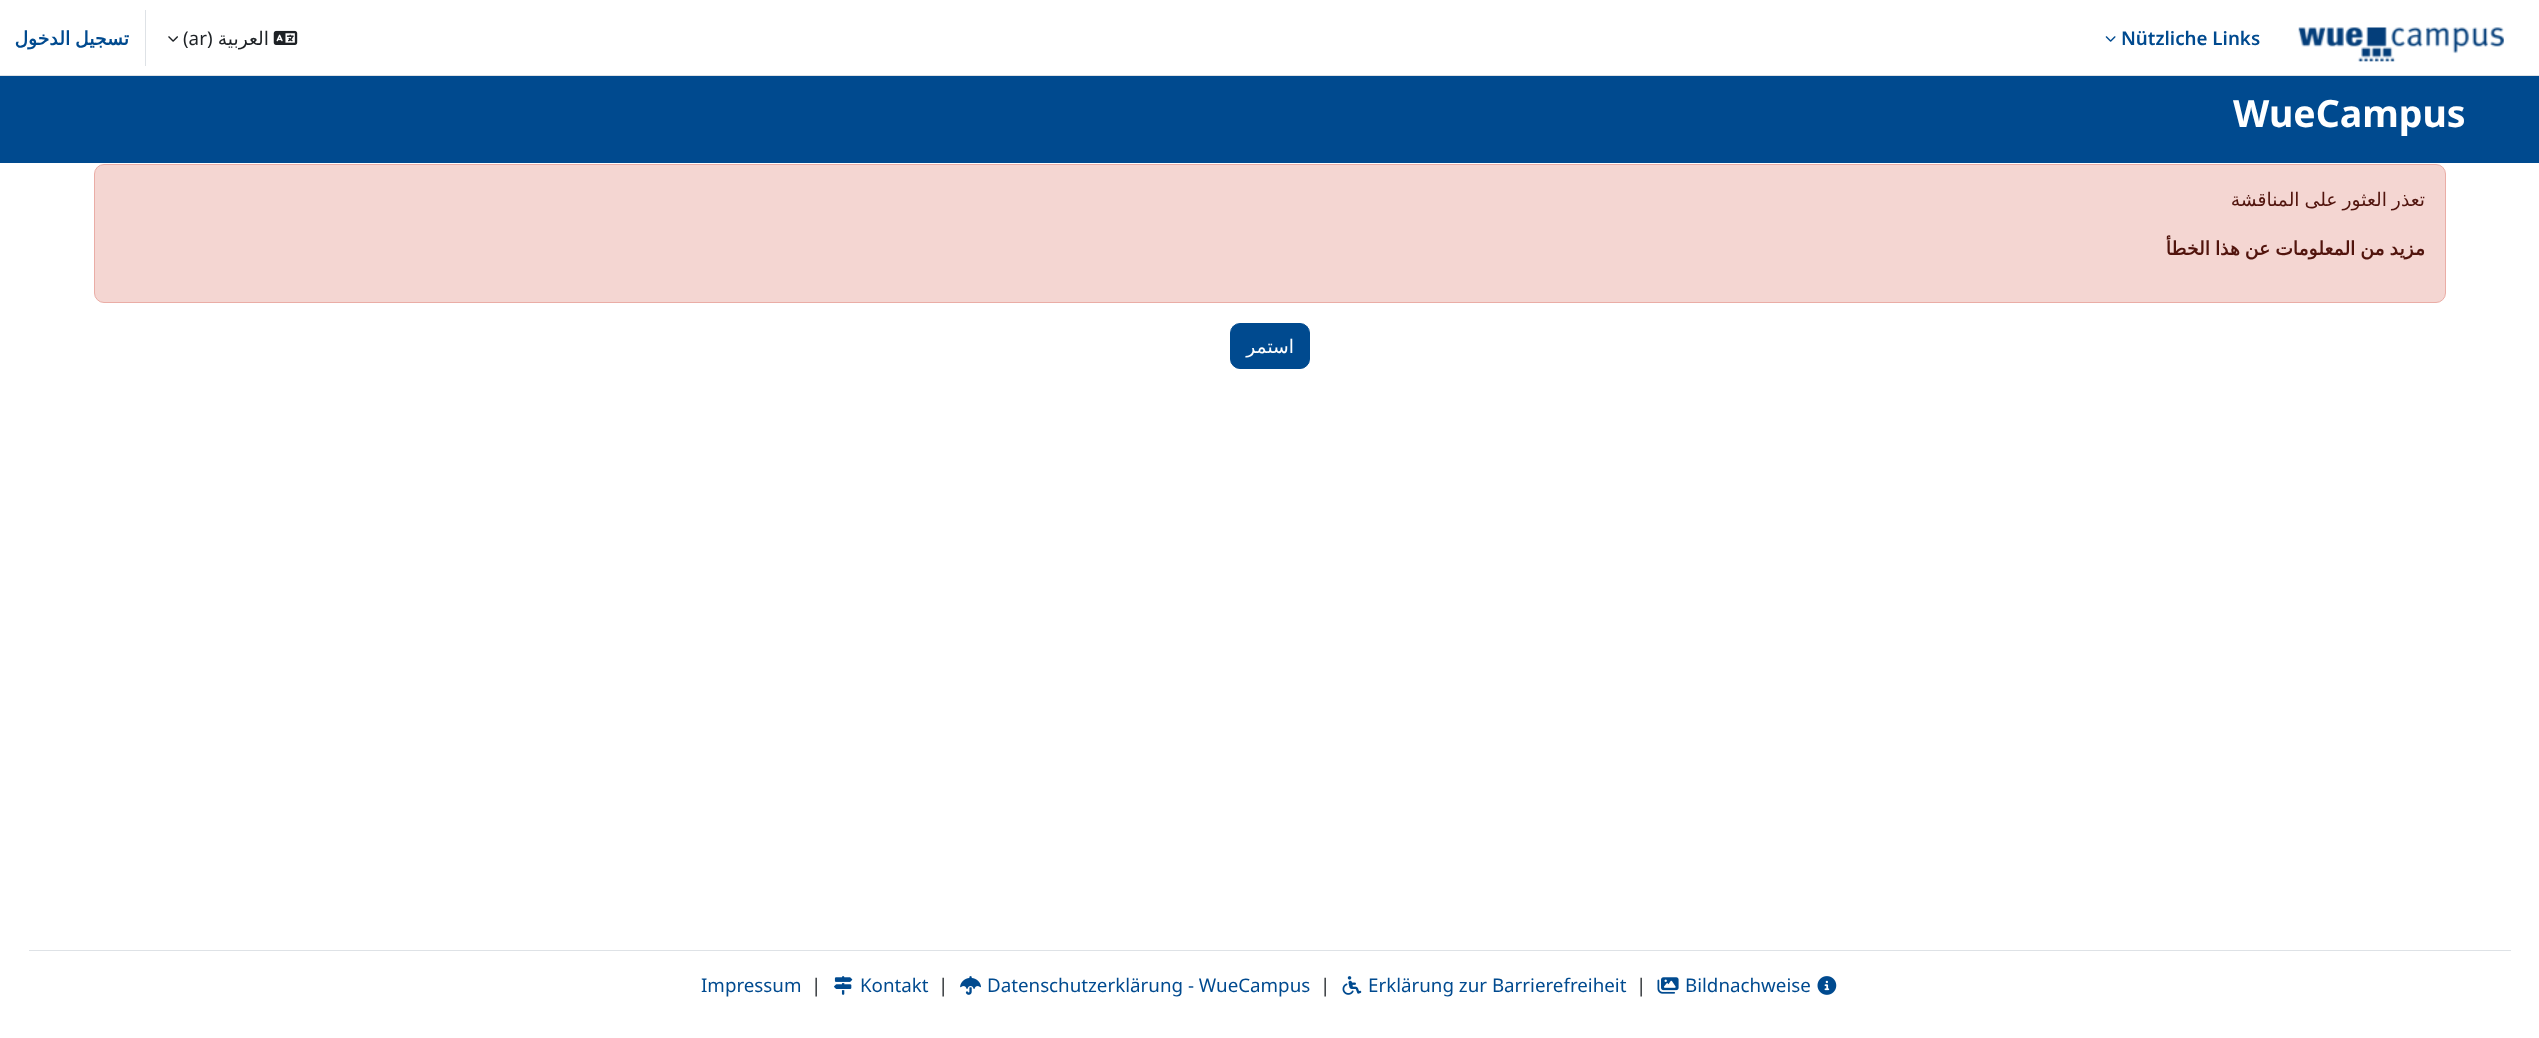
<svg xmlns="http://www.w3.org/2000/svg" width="2539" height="1038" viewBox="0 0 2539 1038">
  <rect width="100%" height="100%" fill="rgb(255,255,255)"/>
  <rect x="0" y="75" width="2539" height="1" fill="rgb(222,226,230)"/>
  <text x="129" y="45" word-spacing="-1" font-family="DejaVu Sans" font-size="18.75" font-weight="bold" direction="rtl" fill="rgb(0,74,143)">تسجيل الدخول</text>
  <rect x="145" y="10" width="1" height="56" fill="rgb(222,226,230)"/>
  <image x="168" y="36" width="10" height="6" href="pic1.png"/>
  <text x="183" y="45" font-family="Noto Sans" font-size="18.75" fill="rgb(29,33,37)">(ar)</text>
  <text x="269" y="45" font-family="DejaVu Sans" font-size="18.75" direction="rtl" fill="rgb(29,33,37)">العربية</text>
  <image x="273" y="30" width="25" height="15" href="pic2.png"/>
  <image x="2105" y="36" width="11" height="6" href="pic3.png"/>
  <text x="2121" y="45" font-family="Noto Sans" font-size="18.75" font-weight="600" fill="rgb(0,74,143)">Nützliche Links</text>
  <image x="2298" y="27" width="206" height="35" href="pic4.png"/>
  <rect x="0" y="76" width="2539" height="87" fill="rgb(0,74,143)"/>
  <text x="2233" y="127" font-family="Noto Sans" font-size="37.5" font-weight="bold" fill="rgb(255,255,255)">WueCampus</text>
  <rect x="94.5" y="164.5" width="2351" height="138" rx="9.5" fill="rgb(244,214,210)" stroke="rgb(234,173,166)"/>
  <text x="2425" y="206" word-spacing="-1" font-family="DejaVu Sans" font-size="18.75" direction="rtl" fill="rgb(81,20,13)">تعذر العثور على المناقشة</text>
  <text x="2425" y="255" word-spacing="-1" font-family="DejaVu Sans" font-size="18.75" font-weight="bold" direction="rtl" fill="rgb(81,20,13)">مزيد من المعلومات عن هذا الخطأ</text>
  <rect x="1230.5" y="323.5" width="79" height="45" rx="9.5" fill="rgb(0,74,143)" stroke="rgb(0,74,143)"/>
  <text x="1294" y="353" font-family="DejaVu Sans" font-size="18.75" direction="rtl" fill="rgb(255,255,255)">استمر</text>
  <rect x="29" y="950" width="2482" height="1" fill="rgb(222,226,230)"/>
  <text x="701" y="992" font-family="Noto Sans" font-size="18.75" fill="rgb(0,74,143)">Impressum</text>
  <image x="1817" y="976" width="20" height="19" href="pic5.png"/>
  <text x="811" y="992" font-family="Noto Sans" font-size="18.75" fill="rgb(29,33,37)">|</text>
  <image x="834" y="976" width="19" height="19" href="pic6.png"/>
  <text x="860" y="992" font-family="Noto Sans" font-size="18.75" fill="rgb(0,74,143)">Kontakt</text>
  <text x="938" y="992" font-family="Noto Sans" font-size="18.75" fill="rgb(29,33,37)">|</text>
  <image x="960" y="976" width="21" height="19" href="pic7.png"/>
  <text x="987" y="992" font-family="Noto Sans" font-size="18.75" fill="rgb(0,74,143)">Datenschutzerklärung - WueCampus</text>
  <text x="1320" y="992" font-family="Noto Sans" font-size="18.75" fill="rgb(29,33,37)">|</text>
  <image x="1342" y="976" width="20" height="19" href="pic8.png"/>
  <text x="1368" y="992" font-family="Noto Sans" font-size="18.75" fill="rgb(0,74,143)">Erklärung zur Barrierefreiheit</text>
  <text x="1636" y="992" font-family="Noto Sans" font-size="18.75" fill="rgb(29,33,37)">|</text>
  <image x="1657" y="977" width="22" height="17" href="pic9.png"/>
  <text x="1685" y="992" font-family="Noto Sans" font-size="18.75" fill="rgb(0,74,143)">Bildnachweise</text>
</svg>
